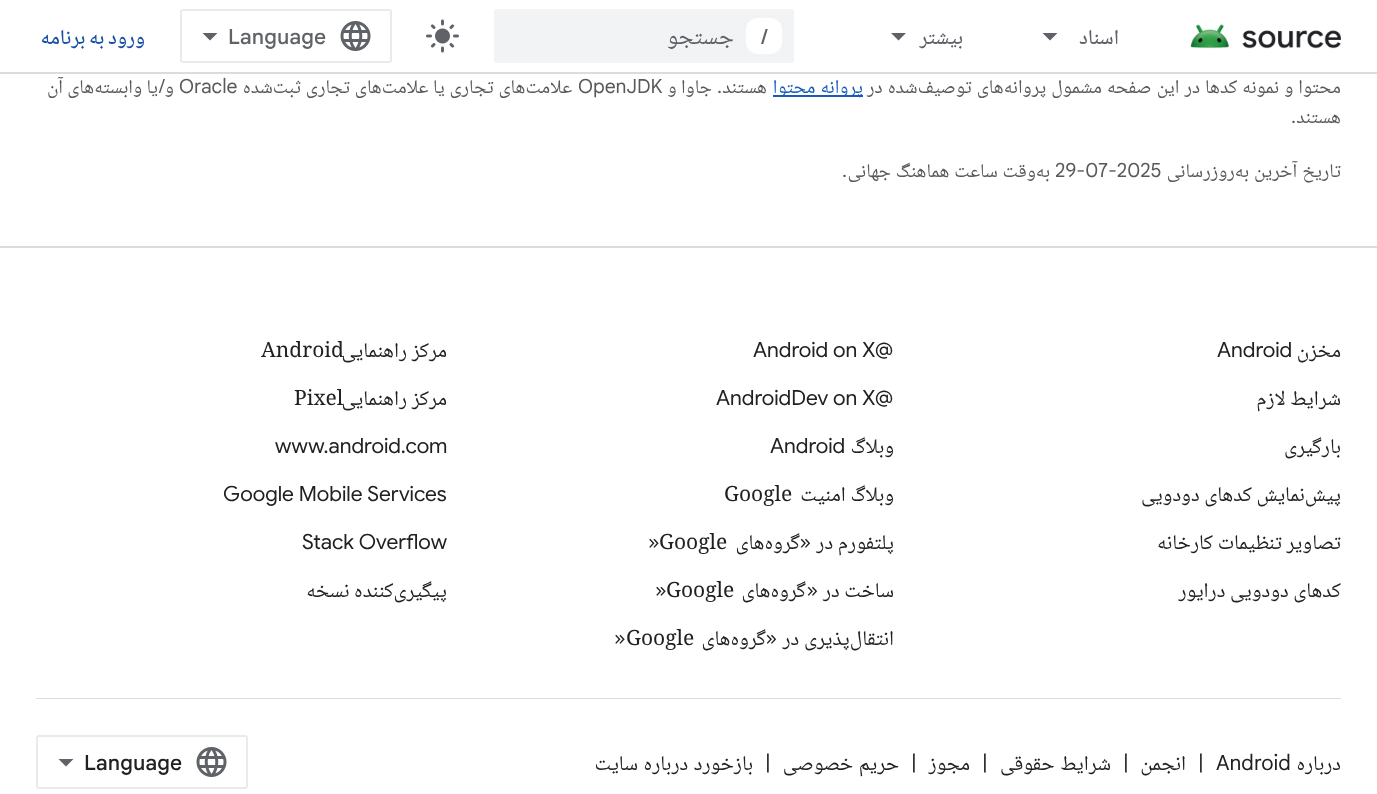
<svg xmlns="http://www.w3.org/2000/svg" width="1377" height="794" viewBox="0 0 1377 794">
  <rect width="100%" height="100%" fill="rgb(255,255,255)"/>
  <rect x="0" y="72" width="1377" height="2" fill="rgb(218,220,224)"/>
  <image x="1190" y="24" width="151" height="25" href="pic1.png"/>
  <text x="1119" y="44" font-family="Noto Naskh Arabic" font-size="21" font-weight="500" letter-spacing="0.4" direction="rtl" fill="rgb(95,99,104)">اسناد</text>
  <path d="M1042.5 33H1057.5L1050 40.5Z" fill="rgb(95,99,104)"/>
  <text x="963" y="44" font-family="Noto Naskh Arabic" font-size="21" font-weight="500" letter-spacing="0.4" direction="rtl" fill="rgb(95,99,104)">بیشتر</text>
  <path d="M891 33H906L898.5 40.5Z" fill="rgb(95,99,104)"/>
  <rect x="494" y="9" width="300" height="54" rx="3" fill="rgb(241,243,244)"/>
  <rect x="746" y="18" width="36" height="36" rx="12" fill="rgb(255,255,255)"/>
  <text x="761" y="44" font-family="Google Sans" font-size="21" font-weight="500" fill="rgb(95,99,104)">/</text>
  <text x="734" y="44" font-family="Noto Naskh Arabic" font-size="24" direction="rtl" fill="rgb(95,99,104)">جستجو</text>
  <image x="426" y="19" width="33" height="34" href="pic2.png"/>
  <rect x="181" y="10" width="210" height="52" rx="2" fill="none" stroke="rgb(232,234,237)" stroke-width="2"/>
  <image x="340" y="21" width="31" height="30" href="pic3.png"/>
  <text x="228" y="44" font-family="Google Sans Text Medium" font-size="21" font-weight="500" fill="rgb(95,99,104)">Language</text>
  <path d="M210 40.5L202.5 33H217.5Z" fill="rgb(95,99,104)"/>
  <text x="145" y="44" word-spacing="-1" font-family="Noto Naskh Arabic" font-size="21" font-weight="500" letter-spacing="0.4" direction="rtl" fill="rgb(23,78,166)">ورود به برنامه</text>
  <text x="1341" y="93" word-spacing="0.75" font-family="Noto Naskh Arabic" font-size="19.5" direction="rtl" fill="rgb(89,89,89)">محتوا و نمونه کدها در این صفحه مشمول پروانه‌های توصیف‌شده در</text>
  <rect x="773" y="95" width="90" height="2" fill="rgb(24,90,188)"/>
  <text x="863" y="93" word-spacing="0.75" font-family="Noto Naskh Arabic" font-size="19.5" direction="rtl" fill="rgb(24,90,188)">پروانه محتوا</text>
  <text x="767" y="93" font-family="Noto Naskh Arabic" font-size="19.5" direction="rtl" fill="rgb(89,89,89)">هستند</text>
  <text x="722" y="93" font-family="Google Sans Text" font-size="19.5" direction="rtl" fill="rgb(89,89,89)">.</text>
  <text x="712" y="93" font-family="Noto Naskh Arabic" font-size="19.5" direction="rtl" fill="rgb(89,89,89)">جاوا و</text>
  <text x="578" y="93" font-family="Google Sans Text" font-size="19.5" fill="rgb(89,89,89)">OpenJDK</text>
  <text x="572" y="93" word-spacing="0.5" font-family="Noto Naskh Arabic" font-size="19.5" direction="rtl" fill="rgb(89,89,89)">علامت‌های تجاری یا علامت‌های تجاری ثبت‌شده</text>
  <text x="179" y="93" font-family="Google Sans Text" font-size="19.5" fill="rgb(89,89,89)">Oracle</text>
  <text x="174" y="93" font-family="Noto Naskh Arabic" font-size="19.5" direction="rtl" fill="rgb(89,89,89)">و</text>
  <text x="165" y="93" font-family="Google Sans Text" font-size="19.5" direction="rtl" fill="rgb(89,89,89)">/</text>
  <g font-family="Noto Naskh Arabic" font-size="19.5" direction="rtl" fill="rgb(89,89,89)">
    <text x="158" y="93">یا وابسته‌های آن</text>
    <text x="1341" y="123">هستند</text>
  </g>
  <text x="1296" y="123" font-family="Google Sans Text" font-size="19.5" direction="rtl" fill="rgb(89,89,89)">.</text>
  <text x="1341" y="177" word-spacing="0.75" font-family="Noto Naskh Arabic" font-size="19.5" direction="rtl" fill="rgb(89,89,89)">تاریخ آخرین به‌روزرسانی</text>
  <text x="1055" y="177" font-family="Google Sans Text" font-size="19.5" fill="rgb(89,89,89)">29-07-2025</text>
  <text x="1050" y="177" word-spacing="0.5" font-family="Noto Naskh Arabic" font-size="19.5" direction="rtl" fill="rgb(89,89,89)">به‌وقت ساعت هماهنگ جهانی</text>
  <text x="847" y="177" font-family="Google Sans Text" font-size="19.5" direction="rtl" fill="rgb(89,89,89)">.</text>
  <rect x="0" y="246" width="1377" height="2" fill="rgb(218,220,224)"/>
  <rect x="36" y="698" width="1305" height="1" fill="rgb(218,220,224)"/>
  <text x="1341" y="357" font-family="Noto Naskh Arabic" font-size="21" direction="rtl" fill="rgb(32,33,36)">مخزن</text>
  <text x="1217" y="357" font-family="Google Sans" font-size="21" fill="rgb(32,33,36)">Android</text>
  <g font-family="Noto Naskh Arabic" font-size="21" direction="rtl" fill="rgb(32,33,36)">
    <text x="1341" y="405">شرایط لازم</text>
    <text x="1341" y="453">بارگیری</text>
    <text x="1341" y="501">پیش‌نمایش کدهای دودویی</text>
    <text x="1341" y="549">تصاویر تنظیمات کارخانه</text>
    <text x="1341" y="597">کدهای دودویی درایور</text>
  </g>
  <g font-family="Google Sans" font-size="21" fill="rgb(32,33,36)">
    <text x="753" y="357">Android on X@</text>
    <text x="716" y="405">AndroidDev on X@</text>
  </g>
  <text x="894" y="453" font-family="Noto Naskh Arabic" font-size="21" direction="rtl" fill="rgb(32,33,36)">وبلاگ</text>
  <text x="770" y="453" font-family="Google Sans" font-size="21" fill="rgb(32,33,36)">Android</text>
  <text x="894" y="501" font-family="Noto Naskh Arabic" font-size="21" direction="rtl" fill="rgb(32,33,36)">وبلاگ امنیت</text>
  <text x="724" y="501" font-family="Noto Naskh Arabic" font-size="21" fill="rgb(32,33,36)">Google</text>
  <text x="894" y="549" font-family="Noto Naskh Arabic" font-size="21" direction="rtl" fill="rgb(32,33,36)">پلتفورم در</text>
  <text x="811" y="549" font-family="Google Sans" font-size="21" direction="rtl" fill="rgb(32,33,36)">«</text>
  <text x="800" y="549" font-family="Noto Naskh Arabic" font-size="21" direction="rtl" fill="rgb(32,33,36)">گروه‌های</text>
  <text x="659" y="549" font-family="Noto Naskh Arabic" font-size="21" fill="rgb(32,33,36)">Google</text>
  <text x="648" y="549" font-family="Google Sans" font-size="21" fill="rgb(32,33,36)">»</text>
  <text x="894" y="597" font-family="Noto Naskh Arabic" font-size="21" direction="rtl" fill="rgb(32,33,36)">ساخت در</text>
  <text x="818" y="597" font-family="Google Sans" font-size="21" direction="rtl" fill="rgb(32,33,36)">«</text>
  <text x="806" y="597" font-family="Noto Naskh Arabic" font-size="21" direction="rtl" fill="rgb(32,33,36)">گروه‌های</text>
  <text x="666" y="597" font-family="Noto Naskh Arabic" font-size="21" fill="rgb(32,33,36)">Google</text>
  <text x="655" y="597" font-family="Google Sans" font-size="21" fill="rgb(32,33,36)">»</text>
  <text x="894" y="645" font-family="Noto Naskh Arabic" font-size="21" direction="rtl" fill="rgb(32,33,36)">انتقال‌پذیری در</text>
  <text x="777" y="645" font-family="Google Sans" font-size="21" direction="rtl" fill="rgb(32,33,36)">«</text>
  <text x="766" y="645" font-family="Noto Naskh Arabic" font-size="21" direction="rtl" fill="rgb(32,33,36)">گروه‌های</text>
  <text x="626" y="645" font-family="Noto Naskh Arabic" font-size="21" fill="rgb(32,33,36)">Google</text>
  <text x="614" y="645" font-family="Google Sans" font-size="21" fill="rgb(32,33,36)">»</text>
  <text x="261" y="357" font-family="Noto Naskh Arabic" font-size="21" fill="rgb(32,33,36)">Android</text>
  <text x="447" y="357" font-family="Noto Naskh Arabic" font-size="21" direction="rtl" fill="rgb(32,33,36)">مرکز راهنمایی</text>
  <text x="294" y="405" font-family="Noto Naskh Arabic" font-size="21" fill="rgb(32,33,36)">Pixel</text>
  <text x="447" y="405" font-family="Noto Naskh Arabic" font-size="21" direction="rtl" fill="rgb(32,33,36)">مرکز راهنمایی</text>
  <g font-family="Google Sans" font-size="21" fill="rgb(32,33,36)">
    <text x="275" y="453">www.android.com</text>
    <text x="223" y="501">Google Mobile Services</text>
    <text x="302" y="549">Stack Overflow</text>
  </g>
  <g font-family="Noto Naskh Arabic" font-size="21" direction="rtl" fill="rgb(32,33,36)">
    <text x="447" y="597">پیگیری‌کننده نسخه</text>
    <text x="1341" y="770">درباره</text>
  </g>
  <g font-family="Google Sans Text" font-size="21" fill="rgb(32,33,36)">
    <text x="1216" y="770">Android</text>
    <text x="1198" y="770">|</text>
  </g>
  <text x="1186" y="770" font-family="Noto Naskh Arabic" font-size="21" direction="rtl" fill="rgb(32,33,36)">انجمن</text>
  <text x="1123" y="770" font-family="Google Sans Text" font-size="21" fill="rgb(32,33,36)">|</text>
  <text x="1111" y="770" word-spacing="1" font-family="Noto Naskh Arabic" font-size="21" direction="rtl" fill="rgb(32,33,36)">شرایط حقوقی</text>
  <text x="982" y="770" font-family="Google Sans Text" font-size="21" fill="rgb(32,33,36)">|</text>
  <text x="970" y="770" font-family="Noto Naskh Arabic" font-size="21" direction="rtl" fill="rgb(32,33,36)">مجوز</text>
  <text x="911" y="770" font-family="Google Sans Text" font-size="21" fill="rgb(32,33,36)">|</text>
  <text x="899" y="770" word-spacing="1" font-family="Noto Naskh Arabic" font-size="21" direction="rtl" fill="rgb(32,33,36)">حریم خصوصی</text>
  <text x="765" y="770" font-family="Google Sans Text" font-size="21" fill="rgb(32,33,36)">|</text>
  <text x="753" y="770" word-spacing="1" font-family="Noto Naskh Arabic" font-size="21" direction="rtl" fill="rgb(32,33,36)">بازخورد درباره سایت</text>
  <rect x="37" y="736" width="210" height="52" rx="2" fill="none" stroke="rgb(232,234,237)" stroke-width="2"/>
  <image x="196" y="747" width="31" height="30" href="pic3.png"/>
  <text x="84" y="770" font-family="Google Sans Text Medium" font-size="21" font-weight="500" fill="rgb(32,33,36)">Language</text>
  <path d="M66 766.5L58.5 759H73.5Z" fill="rgb(95,99,104)"/>
</svg>
